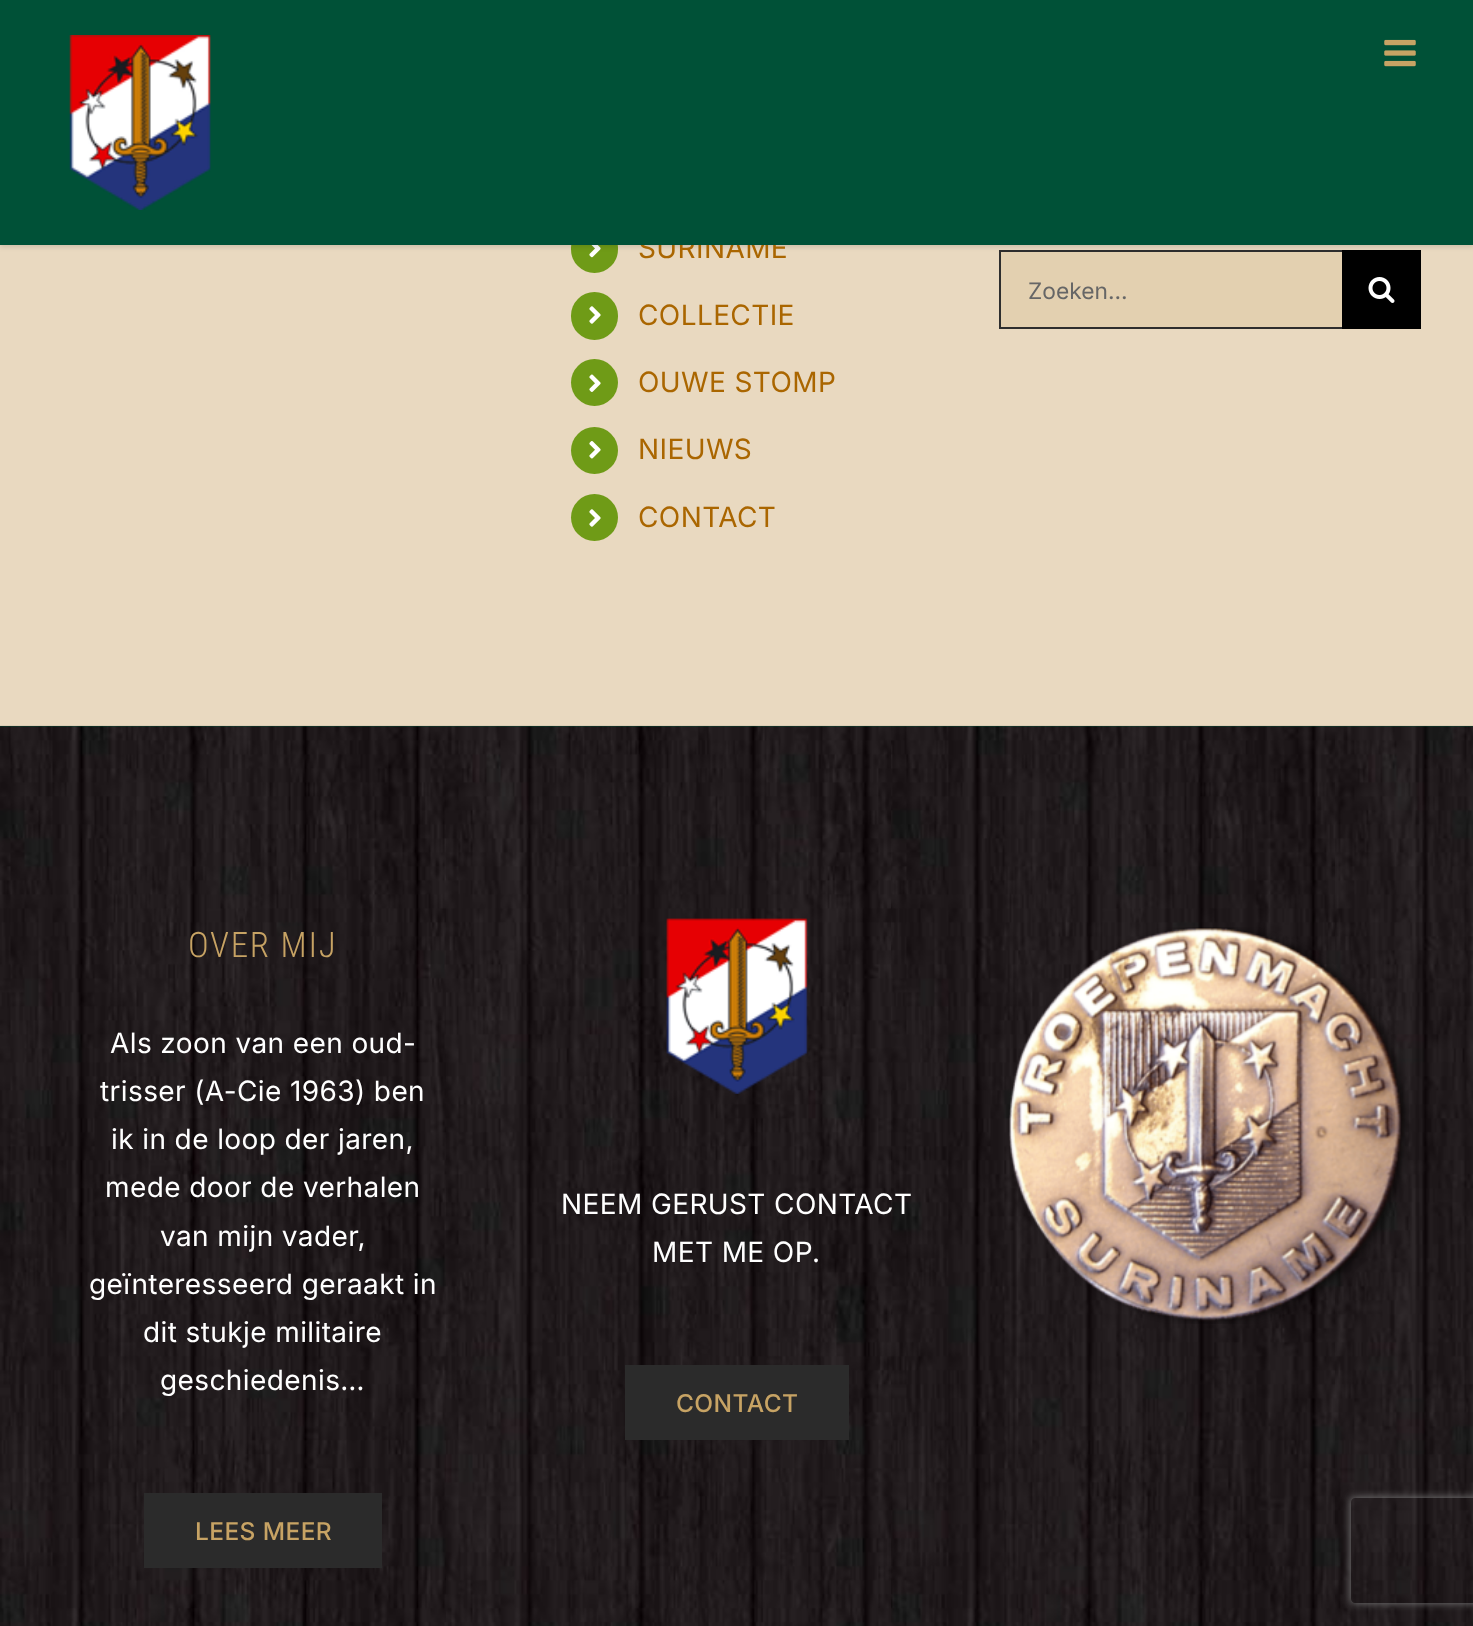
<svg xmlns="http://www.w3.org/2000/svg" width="1473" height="1626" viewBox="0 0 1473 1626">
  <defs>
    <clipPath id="clip1"><path d="M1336 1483H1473V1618H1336ZM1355 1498H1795C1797 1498 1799 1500 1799 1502V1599C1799 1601 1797 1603 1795 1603H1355C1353 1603 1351 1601 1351 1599V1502C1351 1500 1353 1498 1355 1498Z" clip-rule="evenodd"/></clipPath>
  </defs>
  <rect width="100%" height="100%" fill="rgb(233,217,192)"/>
  <rect x="571" y="224" width="47" height="49" rx="23.5" fill="rgb(111,155,23)"/>
  <image x="589" y="245" width="12" height="13" href="pic3.png"/>
  <rect x="1001" y="252" width="341" height="75" fill="rgb(227,208,176)"/>
  <rect x="999" y="250" width="343" height="2" fill="rgb(46,46,46)"/>
  <rect x="999" y="327" width="343" height="2" fill="rgb(46,46,46)"/>
  <rect x="999" y="250" width="2" height="79" fill="rgb(46,46,46)"/>
  <rect x="1342" y="250" width="79" height="79" fill="rgb(0,0,0)"/>
  <rect x="0" y="2" width="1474" height="245" fill="rgba(0,0,0,0.12)" filter="blur(2.5px)"/>
  <text x="638" y="258" font-family="Inter" font-size="28" letter-spacing="0.4" fill="rgb(170,102,0)">SURINAME</text>
  <rect x="0" y="0" width="1473" height="245" fill="rgb(0,81,55)"/>
  <image x="69" y="35" width="142" height="175" href="pic1.png"/>
  <image x="1384" y="39" width="32" height="28" href="pic2.png"/>
  <rect x="571" y="292" width="47" height="48" rx="23.5" fill="rgb(111,155,23)"/>
  <image x="589" y="306" width="12" height="18" href="pic4.png"/>
  <text x="638" y="325" font-family="Inter" font-size="28" letter-spacing="0.4" fill="rgb(170,102,0)">COLLECTIE</text>
  <circle cx="594.5" cy="382.5" r="23.5" fill="rgb(111,155,23)"/>
  <image x="589" y="374" width="12" height="18" href="pic5.png"/>
  <text x="638" y="392" font-family="Inter" font-size="28" letter-spacing="0.4" fill="rgb(170,102,0)">OUWE STOMP</text>
  <circle cx="594.5" cy="450.5" r="23.5" fill="rgb(111,155,23)"/>
  <image x="589" y="441" width="12" height="18" href="pic6.png"/>
  <text x="638" y="459" font-family="Inter" font-size="28" letter-spacing="0.4" fill="rgb(170,102,0)">NIEUWS</text>
  <circle cx="594.5" cy="517.5" r="23.5" fill="rgb(111,155,23)"/>
  <image x="589" y="509" width="12" height="18" href="pic4.png"/>
  <text x="638" y="527" font-family="Inter" font-size="28" letter-spacing="0.4" fill="rgb(170,102,0)">CONTACT</text>
  <text x="1028" y="299" font-family="Inter" font-size="22.75" fill="rgb(102,102,102)">Zoeken...</text>
  <image x="1368" y="277" width="27" height="26" href="pic7.png"/>
  <rect x="0" y="726" width="1473" height="900" fill="rgb(0,81,55)"/>
  <image x="0" y="725" width="1473" height="901" href="pic8.png"/>
  <text x="188" y="957" font-family="Roboto Condensed" font-size="35" font-weight="300" letter-spacing="1.75" fill="rgb(199,163,100)">OVER MIJ</text>
  <g font-family="Inter" font-size="28" letter-spacing="0.4" fill="rgb(255,255,255)">
    <text x="110" y="1053">Als zoon van een oud-</text>
    <text x="100" y="1101">trisser (A-Cie 1963) ben</text>
    <text x="111" y="1149">ik in de loop der jaren,</text>
    <text x="105" y="1197">mede door de verhalen</text>
    <text x="160" y="1246">van mijn vader,</text>
    <text x="89" y="1294">geïnteresseerd geraakt in</text>
    <text x="143" y="1342">dit stukje militaire</text>
    <text x="160" y="1390">geschiedenis…</text>
  </g>
  <rect x="144" y="1493" width="238" height="75" fill="rgb(43,43,43)"/>
  <text x="195" y="1540" font-family="Inter" font-size="24.5" font-weight="500" letter-spacing="0.4" fill="rgb(199,163,100)">LEES MEER</text>
  <image x="666" y="918" width="142" height="176" href="pic9.png"/>
  <g font-family="Inter" font-size="28" letter-spacing="0.4" fill="rgb(255,255,255)">
    <text x="561" y="1214">NEEM GERUST CONTACT</text>
    <text x="652" y="1262">MET ME OP.</text>
  </g>
  <rect x="625" y="1365" width="224" height="75" fill="rgb(43,43,43)"/>
  <text x="676" y="1412" font-family="Inter" font-size="24.5" font-weight="500" letter-spacing="0.4" fill="rgb(199,163,100)">CONTACT</text>
  <image x="1009" y="927" width="400" height="397" href="pic10.png"/>
  <g clip-path="url(#clip1)">
    <rect x="1351" y="1498" width="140" height="105" rx="4" fill="rgb(128,128,128)" filter="blur(4.5px)"/>
  </g>
</svg>
